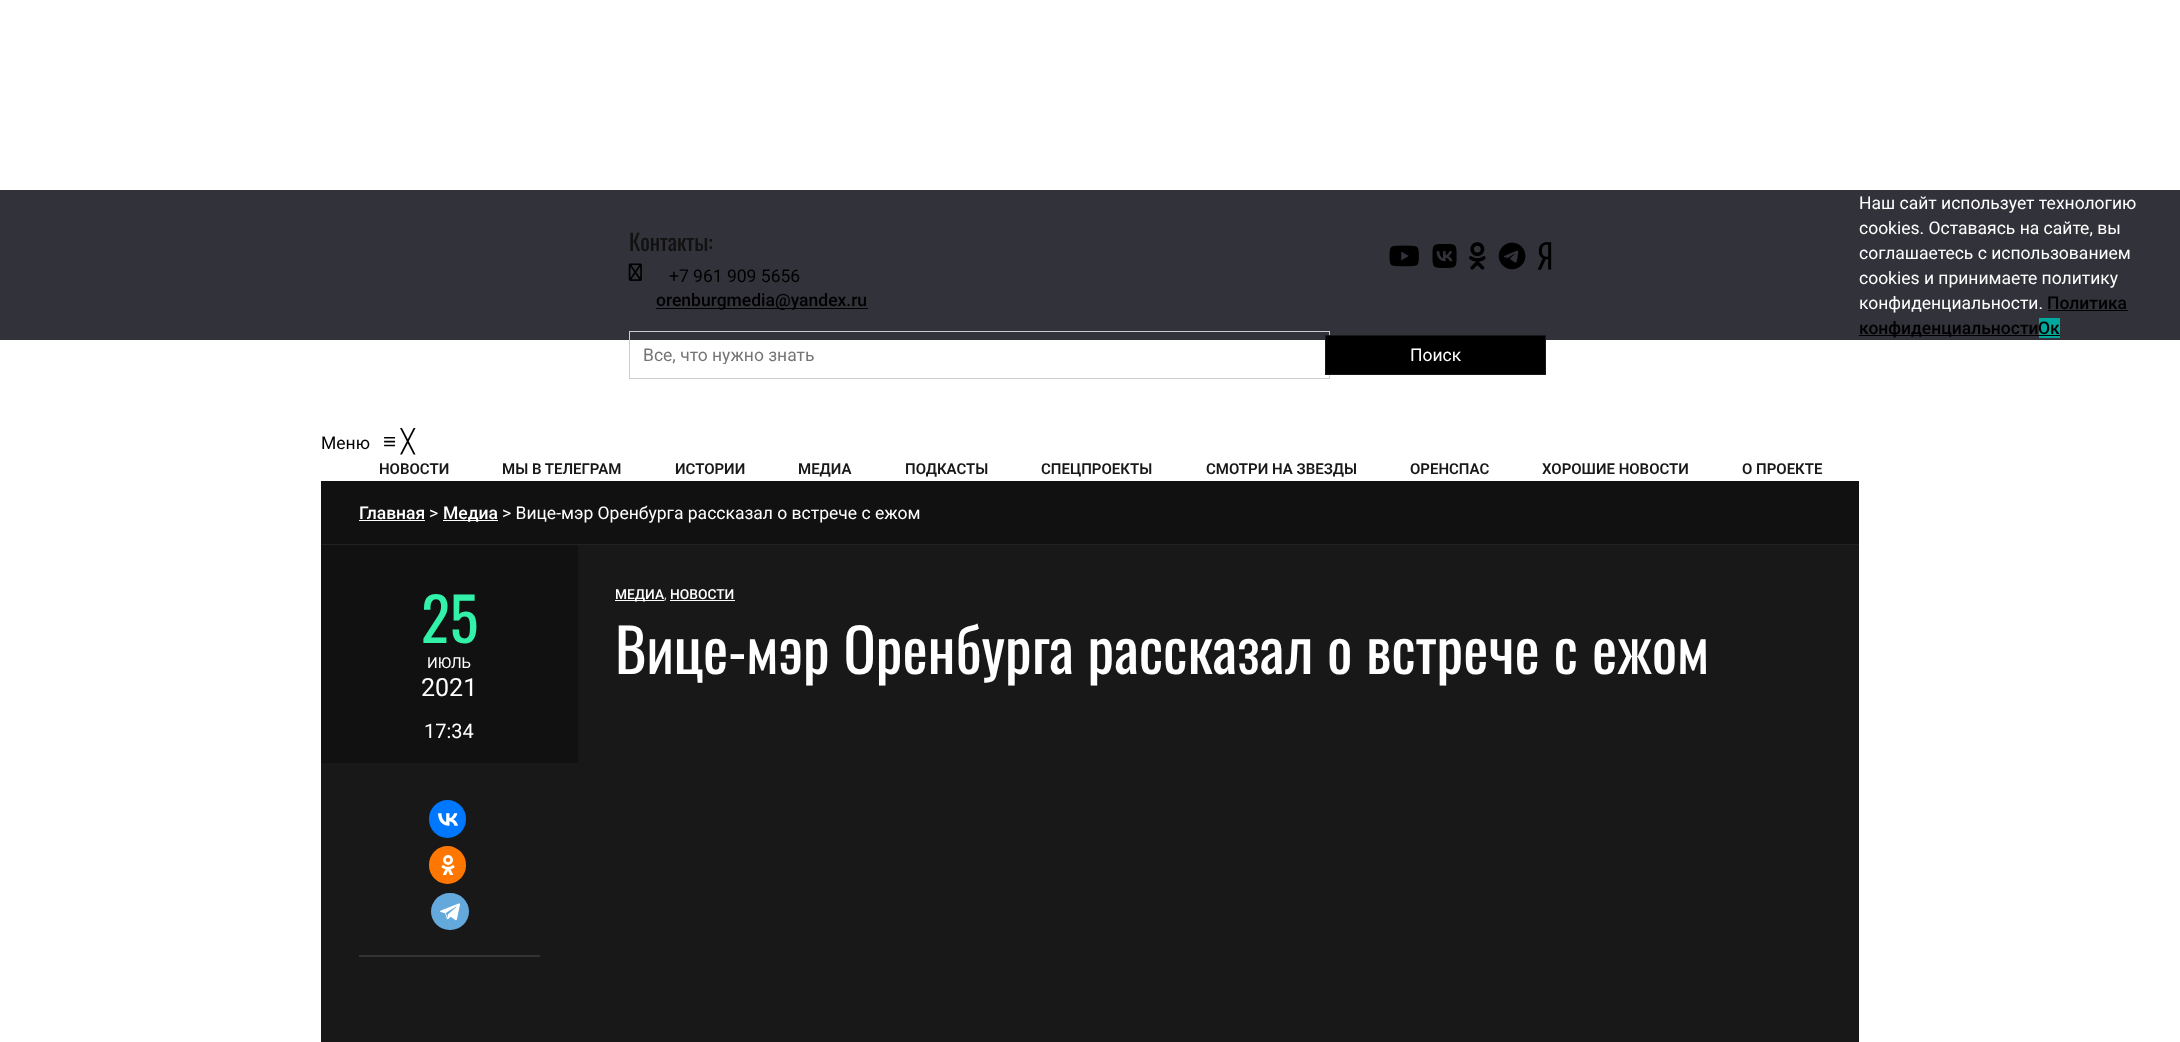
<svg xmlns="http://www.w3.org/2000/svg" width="2180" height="1042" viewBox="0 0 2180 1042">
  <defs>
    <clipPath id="clip1"><rect x="643" y="344" width="656" height="20"/></clipPath>
  </defs>
  <rect width="100%" height="100%" fill="rgb(255,255,255)"/>
  <rect x="0" y="190" width="2180" height="150" fill="rgb(50,50,58)"/>
  <text x="629" y="251" font-family="Oswald" font-size="22.5" fill="rgb(17,17,17)">Контакты:</text>
  <image x="628" y="263" width="14" height="18" href="pic1.png"/>
  <text x="669" y="282" font-family="Roboto" font-size="17.5" fill="rgb(0,0,0)">+7 961 909 5656</text>
  <rect x="656" y="308" width="212" height="1" fill="rgb(0,0,0)"/>
  <text x="656" y="306" font-family="Roboto" font-size="17.5" font-weight="500" fill="rgb(0,0,0)">orenburgmedia@yandex.ru</text>
  <image x="1389" y="245" width="30" height="22" href="pic2.png"/>
  <image x="1432" y="244" width="25" height="24" href="pic3.png"/>
  <image x="1469" y="242" width="17" height="28" href="pic4.png"/>
  <image x="1498" y="242" width="28" height="28" href="pic5.png"/>
  <image x="1537" y="242" width="15" height="28" href="pic6.png"/>
  <rect x="629.5" y="331.5" width="700" height="47" fill="none" stroke="rgb(204,204,204)"/>
  <g clip-path="url(#clip1)">
    <text x="643" y="361" font-family="Roboto" font-size="17.5" fill="rgb(117,117,117)">Все, что нужно знать</text>
  </g>
  <rect x="1325.5" y="335.5" width="220" height="39" fill="rgb(0,0,0)" stroke="rgb(24,24,24)"/>
  <text x="1410" y="361" font-family="Roboto" font-size="17.5" fill="rgb(255,255,255)">Поиск</text>
  <text x="321" y="449" font-family="Roboto" font-size="17.5" fill="rgb(0,0,0)">Меню</text>
  <text x="383" y="449" font-family="Liberation Sans" font-size="22.5" fill="rgb(0,0,0)">≡</text>
  <text x="401" y="449" font-family="DejaVu Sans" font-size="22.5" fill="rgb(0,0,0)">╳</text>
  <g font-family="Roboto" font-size="15" font-weight="600" fill="rgb(24,24,24)">
    <text x="379" y="474">НОВОСТИ</text>
    <text x="502" y="474">МЫ В ТЕЛЕГРАМ</text>
    <text x="675" y="474">ИСТОРИИ</text>
    <text x="798" y="474">МЕДИА</text>
    <text x="905" y="474">ПОДКАСТЫ</text>
    <text x="1041" y="474">СПЕЦПРОЕКТЫ</text>
    <text x="1206" y="474">СМОТРИ НА ЗВЕЗДЫ</text>
    <text x="1410" y="474">ОРЕНСПАС</text>
    <text x="1542" y="474">ХОРОШИЕ НОВОСТИ</text>
    <text x="1742" y="474">О ПРОЕКТЕ</text>
  </g>
  <g font-family="Roboto" font-size="17.5" fill="rgb(255,255,255)">
    <text>
      <tspan x="1859" y="209">Наш сайт использует технологию</tspan>
      <tspan x="1859" y="234">cookies. Оставаясь на сайте, вы</tspan>
      <tspan x="1859" y="259">соглашаетесь с использованием</tspan>
      <tspan x="1859" y="284">cookies и принимаете политику</tspan>
      <tspan x="1859" y="309">конфиденциальности.</tspan>
    </text>
  </g>
  <text x="2047" y="309" font-family="Roboto" font-size="17.5" font-weight="500" fill="rgb(0,0,0)">Политика</text>
  <rect x="2048" y="310" width="80" height="1" fill="rgb(0,0,0)"/>
  <rect x="1859" y="335" width="180" height="1" fill="rgb(0,0,0)"/>
  <text x="1859" y="334" font-family="Roboto" font-size="17.5" font-weight="500" fill="rgb(0,0,0)">конфиденциальности</text>
  <rect x="2039" y="318" width="21" height="20" fill="rgb(0,169,157)"/>
  <text x="2038" y="334" font-family="Roboto" font-size="17.5" font-weight="500" fill="rgb(0,0,0)">Ок</text>
  <rect x="2039" y="335" width="21" height="1" fill="rgb(0,0,0)"/>
  <rect x="321" y="544" width="1538" height="1" fill="rgb(34,34,34)"/>
  <rect x="321" y="481" width="1538" height="63" fill="rgb(17,17,17)"/>
  <text x="359" y="519" font-family="Roboto" font-size="17.5" font-weight="500" fill="rgb(255,255,255)">Главная</text>
  <rect x="359" y="520" width="66" height="1" fill="rgb(255,255,255)"/>
  <text x="429" y="519" font-family="Roboto" font-size="17.5" fill="rgb(255,255,255)">&gt;</text>
  <rect x="443" y="520" width="55" height="1" fill="rgb(255,255,255)"/>
  <text x="443" y="519" font-family="Roboto" font-size="17.5" font-weight="500" fill="rgb(255,255,255)">Медиа</text>
  <text x="502" y="519" font-family="Roboto" font-size="17.5" fill="rgb(255,255,255)">&gt; Вице-мэр Оренбурга рассказал о встрече с ежом</text>
  <rect x="321" y="545" width="257" height="218" fill="rgb(17,17,17)"/>
  <text x="421" y="643" font-family="Oswald" font-size="60" fill="rgb(50,241,168)">25</text>
  <text x="427" y="668" font-family="Roboto" font-size="15" fill="rgb(255,255,255)">ИЮЛЬ</text>
  <text x="421" y="696" font-family="Roboto" font-size="25" fill="rgb(255,255,255)">2021</text>
  <text x="424" y="738" font-family="Roboto" font-size="20" fill="rgb(255,255,255)">17:34</text>
  <rect x="578" y="545" width="1281" height="218" fill="rgb(24,24,24)"/>
  <rect x="615" y="600" width="49" height="1" fill="rgb(255,255,255)"/>
  <text x="615" y="599" font-family="Roboto" font-size="13.75" font-weight="500" fill="rgb(255,255,255)">МЕДИА</text>
  <text x="664" y="599" font-family="Roboto" font-size="13.75" fill="rgb(204,204,204)">,</text>
  <text x="670" y="599" font-family="Roboto" font-size="13.75" font-weight="500" fill="rgb(255,255,255)">НОВОСТИ</text>
  <rect x="670" y="600" width="65" height="1" fill="rgb(255,255,255)"/>
  <text x="615" y="674" font-family="Oswald" font-size="60" fill="rgb(255,255,255)">Вице-мэр Оренбурга рассказал о встрече с ежом</text>
  <rect x="321" y="763" width="1538" height="279" fill="rgb(24,24,24)"/>
  <rect x="359" y="955" width="181" height="2" fill="rgb(51,51,51)"/>
  <rect x="429" y="800" width="37" height="38" rx="18.5" fill="rgb(0,119,255)"/>
  <image x="438" y="813" width="20" height="13" href="pic7.png"/>
  <rect x="429" y="846" width="37" height="38" rx="18.5" fill="rgb(255,119,0)"/>
  <image x="441" y="855" width="14" height="20" href="pic8.png"/>
  <rect x="431" y="893" width="38" height="37" rx="18.5" fill="rgb(100,169,220)"/>
  <image x="440" y="903" width="20" height="18" href="pic9.png"/>
</svg>
